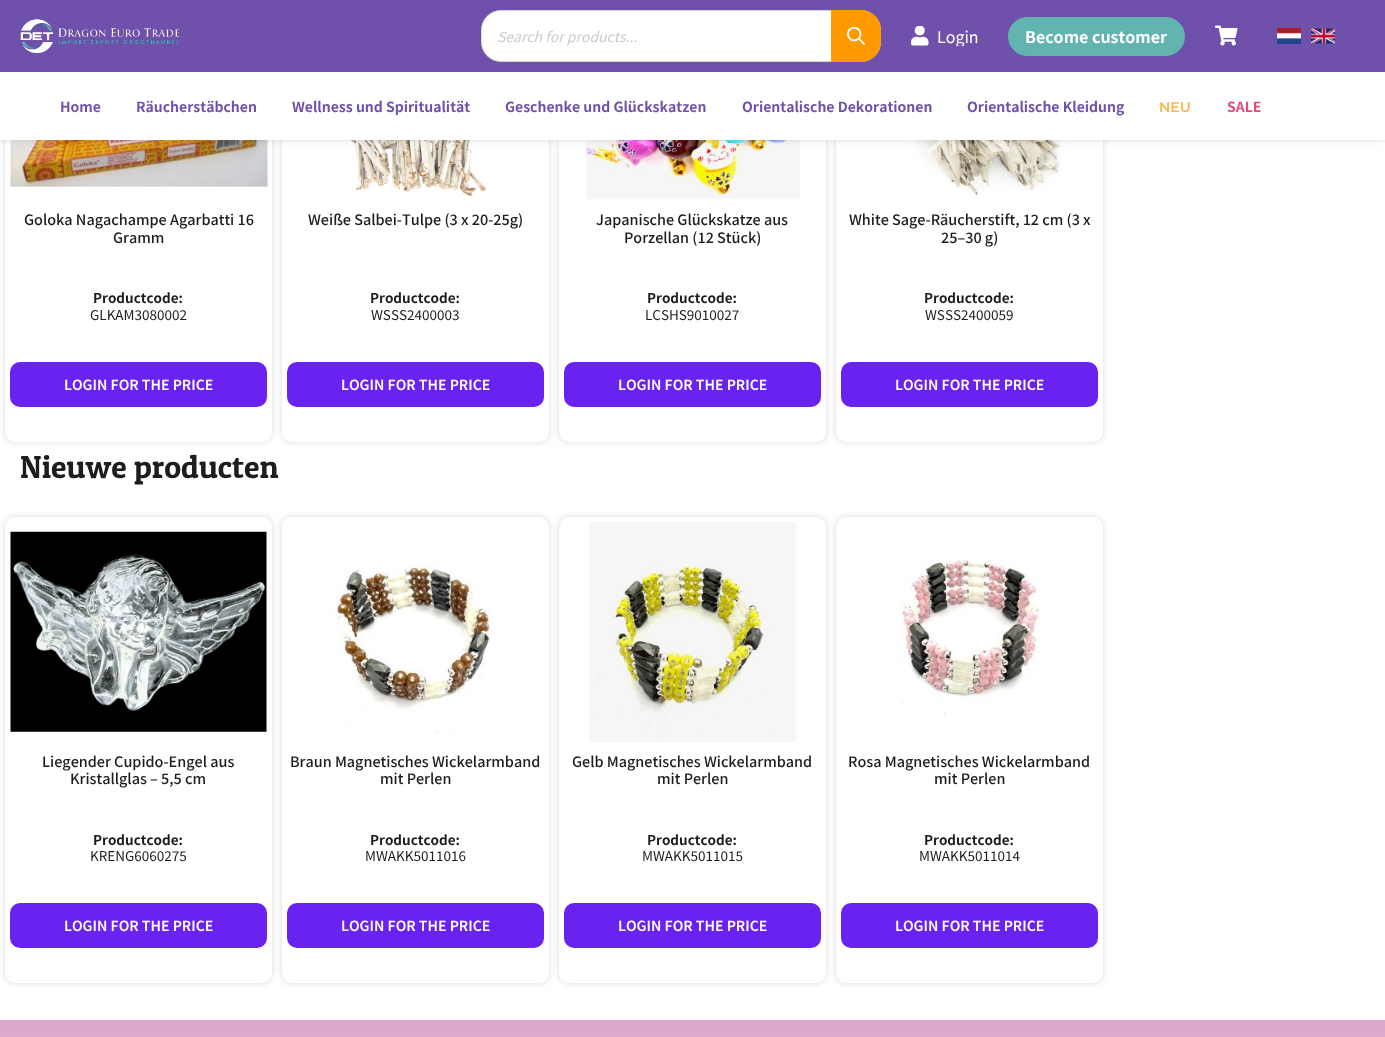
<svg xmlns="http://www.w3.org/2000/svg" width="1385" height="1037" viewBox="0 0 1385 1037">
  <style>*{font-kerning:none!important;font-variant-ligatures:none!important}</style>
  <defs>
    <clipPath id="clip1"><rect x="911" y="26" width="67" height="20"/></clipPath>
    <linearGradient id="g1" gradientUnits="userSpaceOnUse" x1="693" y1="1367" x2="693" y2="1020"><stop offset="0" stop-color="rgb(187,226,236)"/><stop offset="1" stop-color="rgb(221,167,205)"/></linearGradient>
  </defs>
  <rect width="100%" height="100%" fill="rgb(255,255,255)"/>
  <rect x="5" y="-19" width="267" height="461" rx="10" fill="rgba(0,0,0,0.15)" filter="blur(3px)"/>
  <rect x="5" y="-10" width="267" height="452" rx="10" fill="rgb(255,255,255)"/>
  <image x="10" y="140" width="258" height="47" href="pic7.png"/>
  <rect x="282" y="-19" width="267" height="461" rx="10" fill="rgba(0,0,0,0.15)" filter="blur(3px)"/>
  <rect x="282" y="-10" width="267" height="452" rx="10" fill="rgb(255,255,255)"/>
  <image x="314" y="140" width="194" height="57" href="pic8.png"/>
  <rect x="559" y="-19" width="267" height="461" rx="10" fill="rgba(0,0,0,0.15)" filter="blur(3px)"/>
  <rect x="559" y="-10" width="267" height="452" rx="10" fill="rgb(255,255,255)"/>
  <image x="585" y="140" width="215" height="60" href="pic9.png"/>
  <rect x="836" y="-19" width="267" height="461" rx="10" fill="rgba(0,0,0,0.15)" filter="blur(3px)"/>
  <rect x="836" y="-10" width="267" height="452" rx="10" fill="rgb(255,255,255)"/>
  <image x="860" y="140" width="220" height="57" href="pic10.png"/>
  <rect x="0" y="0" width="1385" height="140" fill="rgba(0,0,0,0.15)" filter="blur(3px)"/>
  <rect x="0" y="72" width="1385" height="68" fill="rgb(255,255,255)"/>
  <rect x="0" y="0" width="1385" height="72" fill="rgb(111,80,171)"/>
  <image x="20" y="19" width="160" height="35" href="pic1.png"/>
  <rect x="481.5" y="10.5" width="399" height="51" rx="19.5" fill="rgb(255,255,255)" stroke="rgb(214,214,214)"/>
  <text x="497" y="42" font-family="Noto Sans JP" font-size="14" font-style="italic" fill="rgb(204,204,204)">Search for products...</text>
  <path d="M831 10H861C872 10 881 19 881 30V42C881 53 872 62 861 62H831Z" fill="rgb(255,153,0)"/>
  <image x="847" y="26" width="18" height="19" href="pic2.png"/>
  <image x="911" y="26" width="18" height="20" href="pic3.png"/>
  <g clip-path="url(#clip1)">
    <text x="937" y="43" font-family="Noto Sans JP" font-size="16" fill="rgb(255,255,255)">Login</text>
  </g>
  <rect x="1009" y="18" width="175" height="37" rx="18.5" fill="rgb(98,180,177)" stroke="rgb(98,180,177)" stroke-width="2"/>
  <text x="1025" y="43" font-family="Noto Sans JP" font-size="16" font-weight="bold" fill="rgb(255,255,255)">Become customer</text>
  <image x="1215" y="25" width="23" height="21" href="pic4.png"/>
  <image x="1277" y="28" width="24" height="16" href="pic5.png"/>
  <image x="1311" y="28" width="24" height="16" href="pic6.png"/>
  <g font-family="Noto Sans JP" font-size="14" font-weight="bold" fill="rgb(111,80,171)">
    <text x="60" y="112">Home</text>
    <text x="136" y="112">Räucherstäbchen</text>
    <text x="292" y="112">Wellness und Spiritualität</text>
    <text x="505" y="112">Geschenke und Glückskatzen</text>
    <text x="742" y="112">Orientalische Dekorationen</text>
    <text x="967" y="112">Orientalische Kleidung</text>
  </g>
  <text x="1159" y="112" font-family="Montserrat" font-size="14" font-weight="600" fill="rgb(251,182,78)">NEU</text>
  <text x="1227" y="112" font-family="Noto Sans JP" font-size="14" font-weight="bold" fill="rgb(230,74,119)">SALE</text>
  <g font-family="Noto Sans JP" font-size="14.4" font-weight="500" fill="rgb(29,29,29)">
    <text x="24" y="225">Goloka Nagachampe Agarbatti 16</text>
    <text x="113" y="243">Gramm</text>
  </g>
  <text x="93" y="303" font-family="Noto Sans JP" font-size="13.5" font-weight="bold" fill="rgb(29,29,29)">Productcode:</text>
  <text x="90" y="320" font-family="Noto Sans JP" font-size="13.5" fill="rgb(29,29,29)">GLKAM3080002</text>
  <rect x="11" y="363" width="255" height="43" rx="9" fill="rgb(106,34,241)" stroke="rgb(106,34,241)" stroke-width="2"/>
  <text x="64" y="390" font-family="Noto Sans JP" font-size="14" font-weight="600" fill="rgb(255,255,255)">LOGIN FOR THE PRICE</text>
  <text x="308" y="225" font-family="Noto Sans JP" font-size="14.4" font-weight="500" fill="rgb(29,29,29)">Weiße Salbei-Tulpe (3 x 20-25g)</text>
  <text x="370" y="303" font-family="Noto Sans JP" font-size="13.5" font-weight="bold" fill="rgb(29,29,29)">Productcode:</text>
  <text x="371" y="320" font-family="Noto Sans JP" font-size="13.5" fill="rgb(29,29,29)">WSSS2400003</text>
  <rect x="288" y="363" width="255" height="43" rx="9" fill="rgb(106,34,241)" stroke="rgb(106,34,241)" stroke-width="2"/>
  <text x="341" y="390" font-family="Noto Sans JP" font-size="14" font-weight="600" fill="rgb(255,255,255)">LOGIN FOR THE PRICE</text>
  <g font-family="Noto Sans JP" font-size="14.4" font-weight="500" fill="rgb(29,29,29)">
    <text x="596" y="225">Japanische Glückskatze aus</text>
    <text x="624" y="243">Porzellan (12 Stück)</text>
  </g>
  <text x="647" y="303" font-family="Noto Sans JP" font-size="13.5" font-weight="bold" fill="rgb(29,29,29)">Productcode:</text>
  <text x="645" y="320" font-family="Noto Sans JP" font-size="13.5" fill="rgb(29,29,29)">LCSHS9010027</text>
  <rect x="565" y="363" width="255" height="43" rx="9" fill="rgb(106,34,241)" stroke="rgb(106,34,241)" stroke-width="2"/>
  <text x="618" y="390" font-family="Noto Sans JP" font-size="14" font-weight="600" fill="rgb(255,255,255)">LOGIN FOR THE PRICE</text>
  <g font-family="Noto Sans JP" font-size="14.4" font-weight="500" fill="rgb(29,29,29)">
    <text x="849" y="225">White Sage-Räucherstift, 12 cm (3 x</text>
    <text x="941" y="243">25–30 g)</text>
  </g>
  <text x="924" y="303" font-family="Noto Sans JP" font-size="13.5" font-weight="bold" fill="rgb(29,29,29)">Productcode:</text>
  <text x="925" y="320" font-family="Noto Sans JP" font-size="13.5" fill="rgb(29,29,29)">WSSS2400059</text>
  <rect x="842" y="363" width="255" height="43" rx="9" fill="rgb(106,34,241)" stroke="rgb(106,34,241)" stroke-width="2"/>
  <text x="895" y="390" font-family="Noto Sans JP" font-size="14" font-weight="600" fill="rgb(255,255,255)">LOGIN FOR THE PRICE</text>
  <text x="20" y="478" font-family="Patua One" font-size="32" fill="rgb(29,29,29)">Nieuwe producten</text>
  <rect x="5" y="517" width="267" height="466" rx="10" fill="rgba(0,0,0,0.15)" filter="blur(3px)"/>
  <rect x="5" y="517" width="267" height="466" rx="10" fill="rgb(255,255,255)"/>
  <image x="10" y="531" width="257" height="201" href="pic11.png"/>
  <g font-family="Noto Sans JP" font-size="14.4" font-weight="500" fill="rgb(29,29,29)">
    <text x="42" y="767">Liegender Cupido-Engel aus</text>
    <text x="70" y="784">Kristallglas – 5,5 cm</text>
  </g>
  <text x="93" y="845" font-family="Noto Sans JP" font-size="13.5" font-weight="bold" fill="rgb(29,29,29)">Productcode:</text>
  <text x="90" y="861" font-family="Noto Sans JP" font-size="13.5" fill="rgb(29,29,29)">KRENG6060275</text>
  <rect x="11" y="904" width="255" height="43" rx="9" fill="rgb(106,34,241)" stroke="rgb(106,34,241)" stroke-width="2"/>
  <text x="64" y="931" font-family="Noto Sans JP" font-size="14" font-weight="600" fill="rgb(255,255,255)">LOGIN FOR THE PRICE</text>
  <rect x="282" y="517" width="267" height="466" rx="10" fill="rgba(0,0,0,0.15)" filter="blur(3px)"/>
  <rect x="282" y="517" width="267" height="466" rx="10" fill="rgb(255,255,255)"/>
  <image x="303" y="562" width="191" height="174" href="pic12.png"/>
  <g font-family="Noto Sans JP" font-size="14.4" font-weight="500" fill="rgb(29,29,29)">
    <text x="290" y="767">Braun Magnetisches Wickelarmband</text>
    <text x="380" y="784">mit Perlen</text>
  </g>
  <text x="370" y="845" font-family="Noto Sans JP" font-size="13.5" font-weight="bold" fill="rgb(29,29,29)">Productcode:</text>
  <text x="365" y="861" font-family="Noto Sans JP" font-size="13.5" fill="rgb(29,29,29)">MWAKK5011016</text>
  <rect x="288" y="904" width="255" height="43" rx="9" fill="rgb(106,34,241)" stroke="rgb(106,34,241)" stroke-width="2"/>
  <text x="341" y="931" font-family="Noto Sans JP" font-size="14" font-weight="600" fill="rgb(255,255,255)">LOGIN FOR THE PRICE</text>
  <rect x="559" y="517" width="267" height="466" rx="10" fill="rgba(0,0,0,0.15)" filter="blur(3px)"/>
  <rect x="559" y="517" width="267" height="466" rx="10" fill="rgb(255,255,255)"/>
  <image x="589" y="522" width="207" height="220" href="pic13.png"/>
  <g font-family="Noto Sans JP" font-size="14.4" font-weight="500" fill="rgb(29,29,29)">
    <text x="572" y="767">Gelb Magnetisches Wickelarmband</text>
    <text x="657" y="784">mit Perlen</text>
  </g>
  <text x="647" y="845" font-family="Noto Sans JP" font-size="13.5" font-weight="bold" fill="rgb(29,29,29)">Productcode:</text>
  <text x="642" y="861" font-family="Noto Sans JP" font-size="13.5" fill="rgb(29,29,29)">MWAKK5011015</text>
  <rect x="565" y="904" width="255" height="43" rx="9" fill="rgb(106,34,241)" stroke="rgb(106,34,241)" stroke-width="2"/>
  <text x="618" y="931" font-family="Noto Sans JP" font-size="14" font-weight="600" fill="rgb(255,255,255)">LOGIN FOR THE PRICE</text>
  <rect x="836" y="517" width="267" height="466" rx="10" fill="rgba(0,0,0,0.15)" filter="blur(3px)"/>
  <rect x="836" y="517" width="267" height="466" rx="10" fill="rgb(255,255,255)"/>
  <image x="895" y="560" width="161" height="178" href="pic14.png"/>
  <g font-family="Noto Sans JP" font-size="14.4" font-weight="500" fill="rgb(29,29,29)">
    <text x="848" y="767">Rosa Magnetisches Wickelarmband</text>
    <text x="934" y="784">mit Perlen</text>
  </g>
  <text x="924" y="845" font-family="Noto Sans JP" font-size="13.5" font-weight="bold" fill="rgb(29,29,29)">Productcode:</text>
  <text x="919" y="861" font-family="Noto Sans JP" font-size="13.5" fill="rgb(29,29,29)">MWAKK5011014</text>
  <rect x="842" y="904" width="255" height="43" rx="9" fill="rgb(106,34,241)" stroke="rgb(106,34,241)" stroke-width="2"/>
  <text x="895" y="931" font-family="Noto Sans JP" font-size="14" font-weight="600" fill="rgb(255,255,255)">LOGIN FOR THE PRICE</text>
  <rect x="0" y="1020" width="1385" height="17" fill="url(#g1)"/>
</svg>
